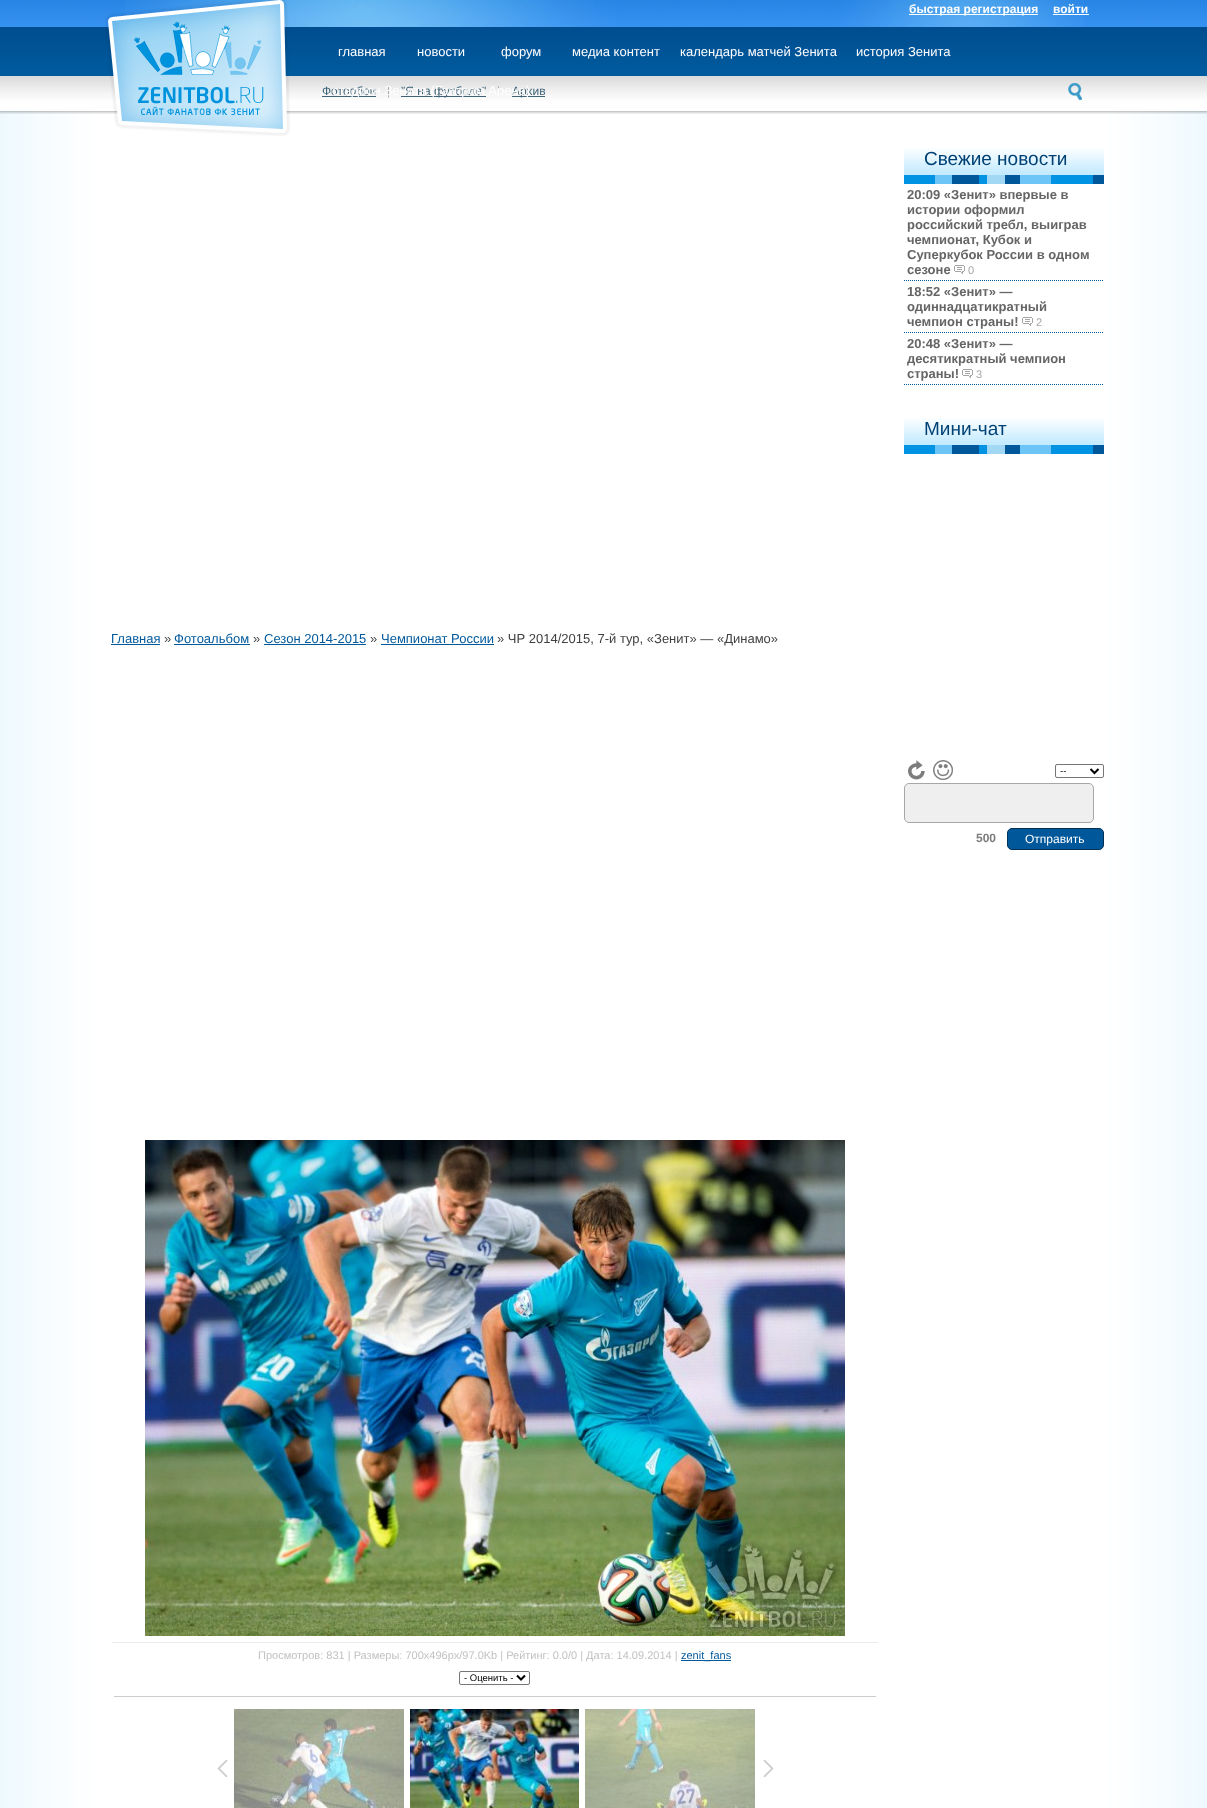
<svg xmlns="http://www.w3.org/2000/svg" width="1207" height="1808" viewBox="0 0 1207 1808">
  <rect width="100%" height="100%" fill="rgb(255,255,255)"/>
  <image x="0" y="111" width="1207" height="1697" href="pic1.png"/>
  <image x="0" y="0" width="1207" height="114" href="pic2.png"/>
  <image x="125" y="0" width="959" height="27" href="pic3.png"/>
  <image x="105" y="0" width="185" height="136" href="pic4.png"/>
  <rect x="909" y="14" width="129" height="1" fill="rgb(255,255,255)"/>
  <g font-family="Liberation Sans" font-size="12" font-weight="bold" fill="rgb(255,255,255)">
    <text x="909" y="13">быстрая регистрация</text>
    <text x="1053" y="13">войти</text>
  </g>
  <rect x="1053" y="14" width="36" height="1" fill="rgb(255,255,255)"/>
  <g font-family="Liberation Sans" font-size="13" fill="rgb(255,255,255)">
    <text x="680" y="56">календарь матчей Зенита</text>
    <text x="856" y="56">история Зенита</text>
  </g>
  <text x="322" y="95" font-family="Liberation Sans" font-size="12" fill="rgb(62,99,119)">Фотообои</text>
  <rect x="322" y="96" width="54" height="1" fill="rgb(62,99,119)"/>
  <text x="387" y="95" font-family="Liberation Sans" font-size="12" fill="rgb(165,165,165)">|</text>
  <rect x="401" y="96" width="85" height="1" fill="rgb(62,99,119)"/>
  <text x="401" y="95" font-family="Liberation Sans" font-size="12" fill="rgb(62,99,119)">"Я на футболе"</text>
  <text x="497" y="95" font-family="Liberation Sans" font-size="12" fill="rgb(165,165,165)">|</text>
  <rect x="512" y="96" width="33" height="1" fill="rgb(62,99,119)"/>
  <text x="512" y="95" font-family="Liberation Sans" font-size="12" fill="rgb(62,99,119)">Архив</text>
  <g font-family="Liberation Sans" font-size="13" fill="rgb(255,255,255)">
    <text x="332" y="95">стадион Зенита (Газпром Арена)</text>
    <text x="338" y="56">главная</text>
    <text x="417" y="56">новости</text>
    <text x="501" y="56">форум</text>
    <text x="572" y="56">медиа контент</text>
  </g>
  <image x="1068" y="83" width="14" height="17" href="pic5.png"/>
  <image x="904" y="148" width="200" height="36" href="pic6.png"/>
  <text x="924" y="165" font-family="Liberation Sans" font-size="19" fill="rgb(0,65,115)">Свежие новости</text>
  <path d="M904 280.5H1104" fill="none" stroke="rgb(0,88,155)" stroke-dasharray="1 1"/>
  <g font-family="Liberation Sans" font-size="13" font-weight="bold" fill="rgb(101,101,101)">
    <text>
      <tspan x="907" y="199">20:09 «Зенит» впервые в</tspan>
      <tspan x="907" y="214">истории оформил</tspan>
      <tspan x="907" y="229">российский требл, выиграв</tspan>
      <tspan x="907" y="244">чемпионат, Кубок и</tspan>
      <tspan x="907" y="259">Суперкубок России в одном</tspan>
      <tspan x="907" y="274">сезоне</tspan>
    </text>
  </g>
  <image x="954" y="265" width="11" height="9" href="pic7.png"/>
  <text x="968" y="274" font-family="Liberation Sans" font-size="11" fill="rgb(165,165,165)">0</text>
  <path d="M904 332.5H1104" fill="none" stroke="rgb(0,88,155)" stroke-dasharray="1 1"/>
  <g font-family="Liberation Sans" font-size="13" font-weight="bold" fill="rgb(101,101,101)">
    <text>
      <tspan x="907" y="296">18:52 «Зенит» —</tspan>
      <tspan x="907" y="311">одиннадцатикратный</tspan>
      <tspan x="907" y="326">чемпион страны!</tspan>
    </text>
  </g>
  <image x="1022" y="317" width="11" height="9" href="pic7.png"/>
  <text x="1036" y="326" font-family="Liberation Sans" font-size="11" fill="rgb(165,165,165)">2</text>
  <path d="M904 384.5H1104" fill="none" stroke="rgb(0,88,155)" stroke-dasharray="1 1"/>
  <g font-family="Liberation Sans" font-size="13" font-weight="bold" fill="rgb(101,101,101)">
    <text>
      <tspan x="907" y="348">20:48 «Зенит» —</tspan>
      <tspan x="907" y="363">десятикратный чемпион</tspan>
      <tspan x="907" y="378">страны!</tspan>
    </text>
  </g>
  <image x="962" y="369" width="11" height="9" href="pic7.png"/>
  <text x="976" y="378" font-family="Liberation Sans" font-size="11" fill="rgb(165,165,165)">3</text>
  <image x="904" y="418" width="200" height="36" href="pic6.png"/>
  <text x="924" y="435" font-family="Liberation Sans" font-size="19" fill="rgb(0,65,115)">Мини-чат</text>
  <image x="908" y="760" width="17" height="20" href="pic8.png"/>
  <image x="933" y="760" width="20" height="20" href="pic9.png"/>
  <rect x="1055.5" y="764.5" width="48" height="13" rx="1.5" fill="none" stroke="rgb(118,118,118)"/>
  <path d="M1090.5 769L1094.5 773L1098.5 769" fill="none" stroke="rgb(0,0,0)" stroke-width="2"/>
  <text x="1060" y="774" font-family="Liberation Sans" font-size="9.5" fill="rgb(0,0,0)">--</text>
  <rect x="904.5" y="783.5" width="189" height="39" rx="4.5" fill="rgb(239,239,239)" stroke="rgb(167,167,167)"/>
  <text x="976" y="842" font-family="Liberation Sans" font-size="12" font-weight="bold" fill="rgb(125,125,125)">500</text>
  <rect x="1007.5" y="828.5" width="96" height="21" rx="4.5" fill="rgb(0,88,155)" stroke="rgb(0,49,86)"/>
  <text x="1025" y="843" font-family="Liberation Sans" font-size="12" fill="rgb(255,255,255)">Отправить</text>
  <text x="111" y="643" font-family="Liberation Sans" font-size="13" fill="rgb(0,89,156)">Главная</text>
  <rect x="111" y="644" width="49" height="1" fill="rgb(0,89,156)"/>
  <text x="164" y="643" font-family="Liberation Sans" font-size="13" fill="rgb(64,64,64)">»</text>
  <text x="174" y="643" font-family="Liberation Sans" font-size="13" fill="rgb(0,89,156)">Фотоальбом</text>
  <rect x="174" y="644" width="76" height="1" fill="rgb(0,89,156)"/>
  <text x="253" y="643" font-family="Liberation Sans" font-size="13" fill="rgb(64,64,64)">»</text>
  <text x="264" y="643" font-family="Liberation Sans" font-size="13" fill="rgb(0,89,156)">Сезон 2014-2015</text>
  <rect x="264" y="644" width="102" height="1" fill="rgb(0,89,156)"/>
  <text x="370" y="643" font-family="Liberation Sans" font-size="13" fill="rgb(64,64,64)">»</text>
  <text x="381" y="643" font-family="Liberation Sans" font-size="13" fill="rgb(0,89,156)">Чемпионат России</text>
  <rect x="381" y="644" width="113" height="1" fill="rgb(0,89,156)"/>
  <text x="497" y="643" font-family="Liberation Sans" font-size="13" fill="rgb(64,64,64)">» ЧР 2014/2015, 7-й тур, «Зенит» — «Динамо»</text>
  <image x="145" y="1140" width="700" height="496" href="pic10.png"/>
  <rect x="112" y="1642" width="766" height="1" fill="rgb(234,234,234)"/>
  <text x="258" y="1659" font-family="Liberation Sans" font-size="11" fill="rgb(193,193,193)">Просмотров: 831 | Размеры: 700x496px/97.0Kb | Рейтинг: 0.0/0 | Дата: 14.09.2014 |</text>
  <rect x="681" y="1660" width="50" height="1" fill="rgb(0,89,156)"/>
  <text x="681" y="1659" font-family="Liberation Sans" font-size="11" fill="rgb(0,89,156)">zenit_fans</text>
  <rect x="459.5" y="1671.5" width="70" height="13" rx="1.5" fill="none" stroke="rgb(118,118,118)"/>
  <path d="M517 1675.5L521 1679.5L525 1675.5" fill="none" stroke="rgb(0,0,0)" stroke-width="2"/>
  <text x="464" y="1681" font-family="Liberation Sans" font-size="9.5" fill="rgb(0,0,0)">- Оценить -</text>
  <rect x="114" y="1696" width="762" height="1" fill="rgb(204,204,204)"/>
  <image x="217" y="1760" width="11" height="17" href="pic11.png"/>
  <image x="234" y="1709" width="170" height="99" href="pic12.png"/>
  <image x="410" y="1709" width="169" height="99" href="pic13.png"/>
  <image x="585" y="1709" width="170" height="99" href="pic14.png"/>
  <image x="763" y="1760" width="11" height="17" href="pic15.png"/>
</svg>
